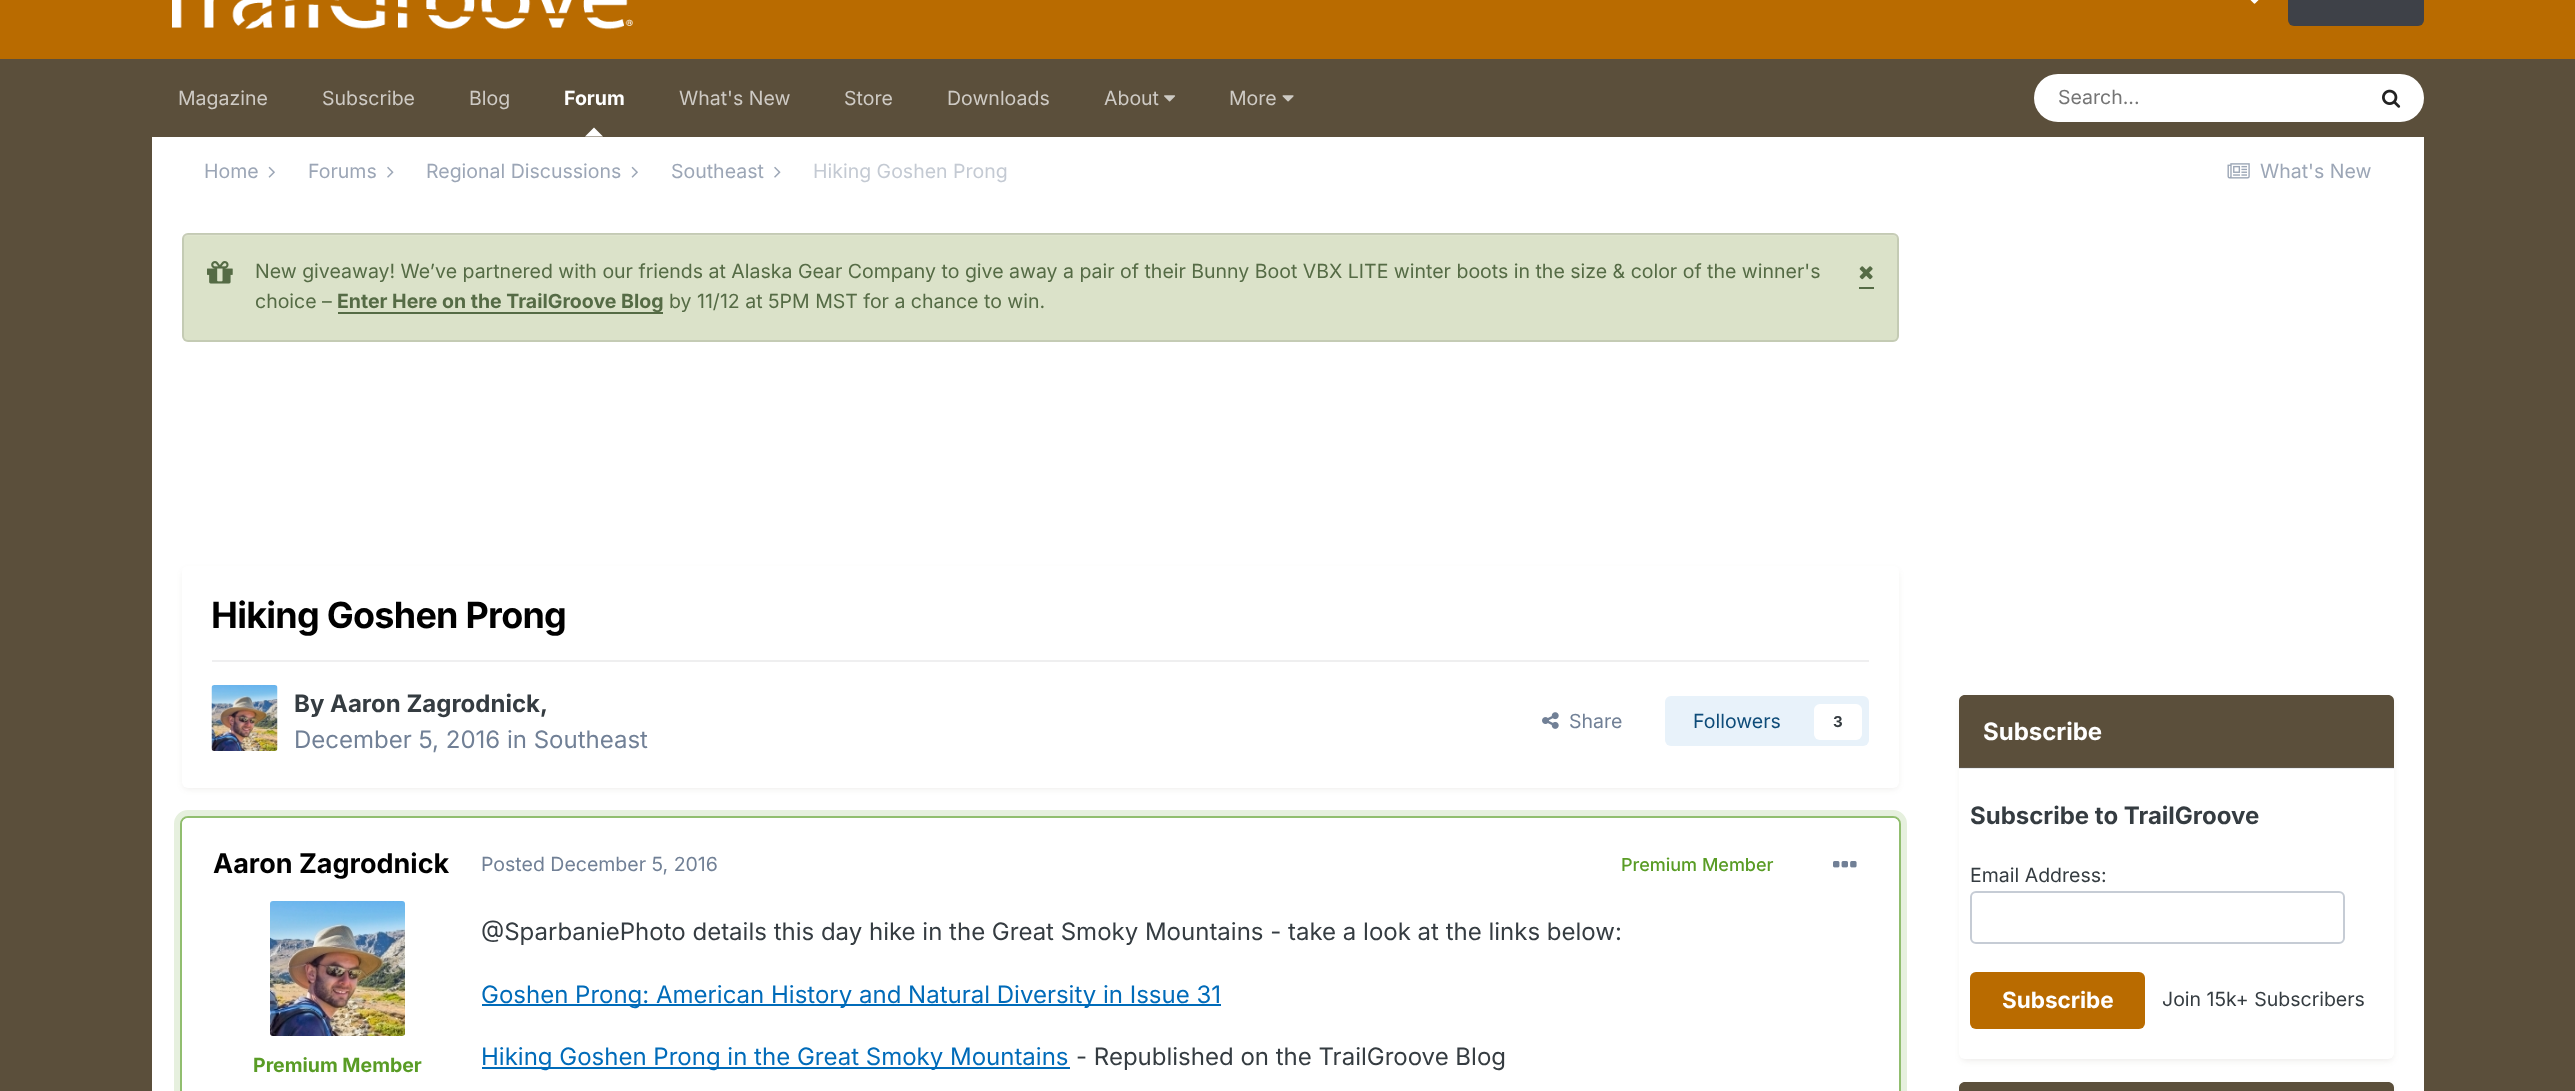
<svg xmlns="http://www.w3.org/2000/svg" width="2575" height="1091" viewBox="0 0 2575 1091">
  <rect width="100%" height="100%" fill="rgb(91,79,59)"/>
  <rect x="0" y="0" width="2575" height="59" fill="rgb(185,107,0)"/>
  <image x="172" y="0" width="461" height="30" href="pic1.png"/>
  <image x="2250" y="0" width="9" height="4" href="pic2.png"/>
  <rect x="2288" y="-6" width="136" height="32" rx="6" fill="rgb(62,65,72)"/>
  <g font-family="Inter" font-size="19.5" fill="rgb(206,202,196)">
    <text x="178" y="105">Magazine</text>
    <text x="322" y="105">Subscribe</text>
    <text x="469" y="105">Blog</text>
  </g>
  <text x="564" y="105" font-family="Inter" font-size="19.5" font-weight="bold" fill="rgb(255,255,255)">Forum</text>
  <path d="M603 136.5H585L594 127.5Z" fill="rgb(255,255,255)"/>
  <g font-family="Inter" font-size="19.5" fill="rgb(206,202,196)">
    <text x="679" y="105">What's New</text>
    <text x="844" y="105">Store</text>
    <text x="947" y="105">Downloads</text>
    <text x="1104" y="105">About</text>
  </g>
  <image x="1164" y="95" width="12" height="7" href="pic3.png"/>
  <text x="1229" y="105" font-family="Inter" font-size="19.5" fill="rgb(206,202,196)">More</text>
  <image x="1282" y="95" width="12" height="7" href="pic4.png"/>
  <rect x="2034" y="74" width="390" height="48" rx="24" fill="rgb(255,255,255)"/>
  <text x="2058" y="104" font-family="Inter" font-size="19.5" fill="rgb(117,117,117)">Search...</text>
  <image x="2382" y="89" width="19" height="19" href="pic5.png"/>
  <rect x="152" y="137" width="2272" height="954" fill="rgb(255,255,255)"/>
  <text x="204" y="178" font-family="Inter" font-size="19.5" fill="rgb(156,166,182)">Home</text>
  <image x="268" y="166" width="7" height="12" href="pic6.png"/>
  <text x="308" y="178" font-family="Inter" font-size="19.5" fill="rgb(156,166,182)">Forums</text>
  <image x="387" y="166" width="7" height="12" href="pic7.png"/>
  <text x="426" y="178" font-family="Inter" font-size="19.5" fill="rgb(156,166,182)">Regional Discussions</text>
  <image x="631" y="166" width="7" height="12" href="pic6.png"/>
  <text x="671" y="178" font-family="Inter" font-size="19.5" fill="rgb(156,166,182)">Southeast</text>
  <image x="774" y="166" width="7" height="12" href="pic7.png"/>
  <text x="813" y="178" font-family="Inter" font-size="19.5" fill="rgb(196,202,211)">Hiking Goshen Prong</text>
  <image x="2227" y="163" width="23" height="16" href="pic8.png"/>
  <text x="2260" y="178" font-family="Inter" font-size="19.5" fill="rgb(156,166,182)">What's New</text>
  <rect x="182" y="233" width="1717" height="109" rx="6" fill="rgb(219,226,201)"/>
  <path d="M188 236H1893C1895 236 1898 238 1898 240V239C1898 236 1896 234 1893 234H188C185 234 183 236 183 239V240C183 238 185 236 188 236Z" fill="rgb(223,229,206)"/>
  <rect x="183" y="234" width="1715" height="107" rx="5" fill="none" stroke="rgba(0,0,0,0.1)" stroke-width="2"/>
  <image x="207" y="261" width="26" height="23" href="pic9.png"/>
  <g font-family="Inter" font-size="19.5" fill="rgb(85,107,69)">
    <text>
      <tspan x="255" y="278">New giveaway! We’ve partnered with our friends at Alaska Gear Company to give away a pair of their Bunny Boot VBX LITE winter boots in the size &amp; color of the winner's</tspan>
      <tspan x="255" y="308">choice –</tspan>
    </text>
  </g>
  <rect x="338" y="312" width="325" height="2" fill="rgb(85,107,69)"/>
  <text x="337" y="308" font-family="Inter" font-size="19.5" font-weight="bold" fill="rgb(85,107,69)">Enter Here on the TrailGroove Blog</text>
  <text x="669" y="308" font-family="Inter" font-size="19.5" fill="rgb(85,107,69)">by 11/12 at 5PM MST for a chance to win.</text>
  <rect x="1859" y="287" width="15" height="2" fill="rgb(85,107,69)"/>
  <image x="1859" y="266" width="14" height="14" href="pic10.png"/>
  <rect x="183" y="570" width="1715" height="219" rx="5" fill="rgba(91,79,59,0.1)" filter="blur(3px)"/>
  <rect x="182" y="566" width="1717" height="222" rx="6" fill="rgb(255,255,255)"/>
  <text x="211" y="628" font-family="Inter" font-size="36" font-weight="bold" letter-spacing="-0.75" fill="rgb(0,0,0)">Hiking Goshen Prong</text>
  <rect x="212" y="660" width="1657" height="2" fill="rgb(239,239,240)"/>
  <image x="211" y="685" width="67" height="66" href="pic11.png"/>
  <text x="294" y="712" font-family="Inter" font-size="24" font-weight="bold" fill="rgb(53,60,65)">By Aaron Zagrodnick,</text>
  <text x="294" y="748" font-family="Inter" font-size="24" fill="rgb(113,128,150)">December 5, 2016 in Southeast</text>
  <image x="1542" y="712" width="17" height="17" href="pic12.png"/>
  <text x="1569" y="728" font-family="Inter" font-size="19.5" fill="rgb(113,128,150)">Share</text>
  <rect x="1665" y="696" width="204" height="50" rx="6" fill="rgb(232,242,250)"/>
  <text x="1693" y="728" font-family="Inter" font-size="19.5" fill="rgb(14,76,121)">Followers</text>
  <rect x="1814" y="704" width="48" height="36" rx="6" fill="rgb(255,255,255)"/>
  <text x="1833" y="727" font-family="Inter" font-size="15" font-weight="bold" fill="rgb(53,60,65)">3</text>
  <rect x="178" y="814" width="1725" height="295" rx="10" fill="none" stroke="rgb(230,240,222)" stroke-width="8"/>
  <rect x="181" y="817" width="1719" height="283" rx="7" fill="none" stroke="rgba(89,156,37,0.6)" stroke-width="2"/>
  <rect x="182" y="818" width="1717" height="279" rx="6" fill="rgb(255,255,255)"/>
  <text x="213" y="873" font-family="Inter" font-size="27" font-weight="bold" fill="rgb(0,0,0)">Aaron Zagrodnick</text>
  <image x="270" y="901" width="135" height="135" href="pic13.png"/>
  <text x="253" y="1072" font-family="Inter" font-size="19.5" font-weight="bold" fill="rgb(89,156,37)">Premium Member</text>
  <text x="481" y="871" font-family="Inter" font-size="19.5" fill="rgb(113,128,150)">Posted December 5, 2016</text>
  <text x="1621" y="871" font-family="Inter" font-size="18" font-weight="500" fill="rgb(89,156,37)">Premium Member</text>
  <image x="1833" y="861" width="24" height="7" href="pic14.png"/>
  <text x="481" y="940" font-family="Inter" font-size="24" fill="rgb(53,60,65)">@SparbaniePhoto details this day hike in the Great Smoky Mountains - take a look at the links below:</text>
  <rect x="482" y="1004" width="739" height="2" fill="rgb(0,107,185)"/>
  <text x="481" y="1003" font-family="Inter" font-size="24" fill="rgb(0,107,185)">Goshen Prong: American History and Natural Diversity in Issue 31</text>
  <rect x="482" y="1067" width="588" height="2" fill="rgb(0,107,185)"/>
  <text x="481" y="1065" font-family="Inter" font-size="24" fill="rgb(0,107,185)">Hiking Goshen Prong in the Great Smoky Mountains</text>
  <text x="1076" y="1065" font-family="Inter" font-size="24" fill="rgb(53,60,65)">- Republished on the TrailGroove Blog</text>
  <rect x="1961" y="699" width="432" height="362" rx="5" fill="rgba(91,79,59,0.1)" filter="blur(3px)"/>
  <rect x="1959" y="695" width="435" height="364" rx="6" fill="rgb(255,255,255)"/>
  <rect x="1959" y="768" width="435" height="1" fill="rgb(234,236,239)"/>
  <path d="M1965 695H2388C2391.5 695 2394 697.5 2394 701V768H1959V701C1959 697.5 1961.5 695 1965 695Z" fill="rgb(91,79,59)"/>
  <rect x="1959" y="767" width="435" height="1" fill="rgb(94,86,73)"/>
  <text x="1983" y="740" font-family="Inter" font-size="24" font-weight="bold" fill="rgb(255,255,255)">Subscribe</text>
  <text x="1970" y="824" font-family="Inter" font-size="24" font-weight="bold" fill="rgb(53,60,65)">Subscribe to TrailGroove</text>
  <text x="1970" y="882" font-family="Inter" font-size="19.5" fill="rgb(53,60,65)">Email Address:</text>
  <rect x="1971" y="892" width="373" height="51" rx="5" fill="none" stroke="rgb(198,204,213)" stroke-width="2"/>
  <rect x="1970" y="972" width="175" height="57" rx="6" fill="rgb(185,107,0)"/>
  <text x="2002" y="1008" font-family="Inter" font-size="22.5" font-weight="bold" fill="rgb(255,255,255)">Subscribe</text>
  <text x="2162" y="1006" font-family="Inter" font-size="19.5" fill="rgb(53,60,65)">Join 15k+ Subscribers</text>
  <rect x="1961" y="1086" width="432" height="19" rx="5" fill="rgba(91,79,59,0.1)" filter="blur(3px)"/>
  <path d="M1965 1082H2388C2391.5 1082 2394 1084.5 2394 1088V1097H1959V1088C1959 1084.5 1961.5 1082 1965 1082Z" fill="rgb(91,79,59)"/>
</svg>
